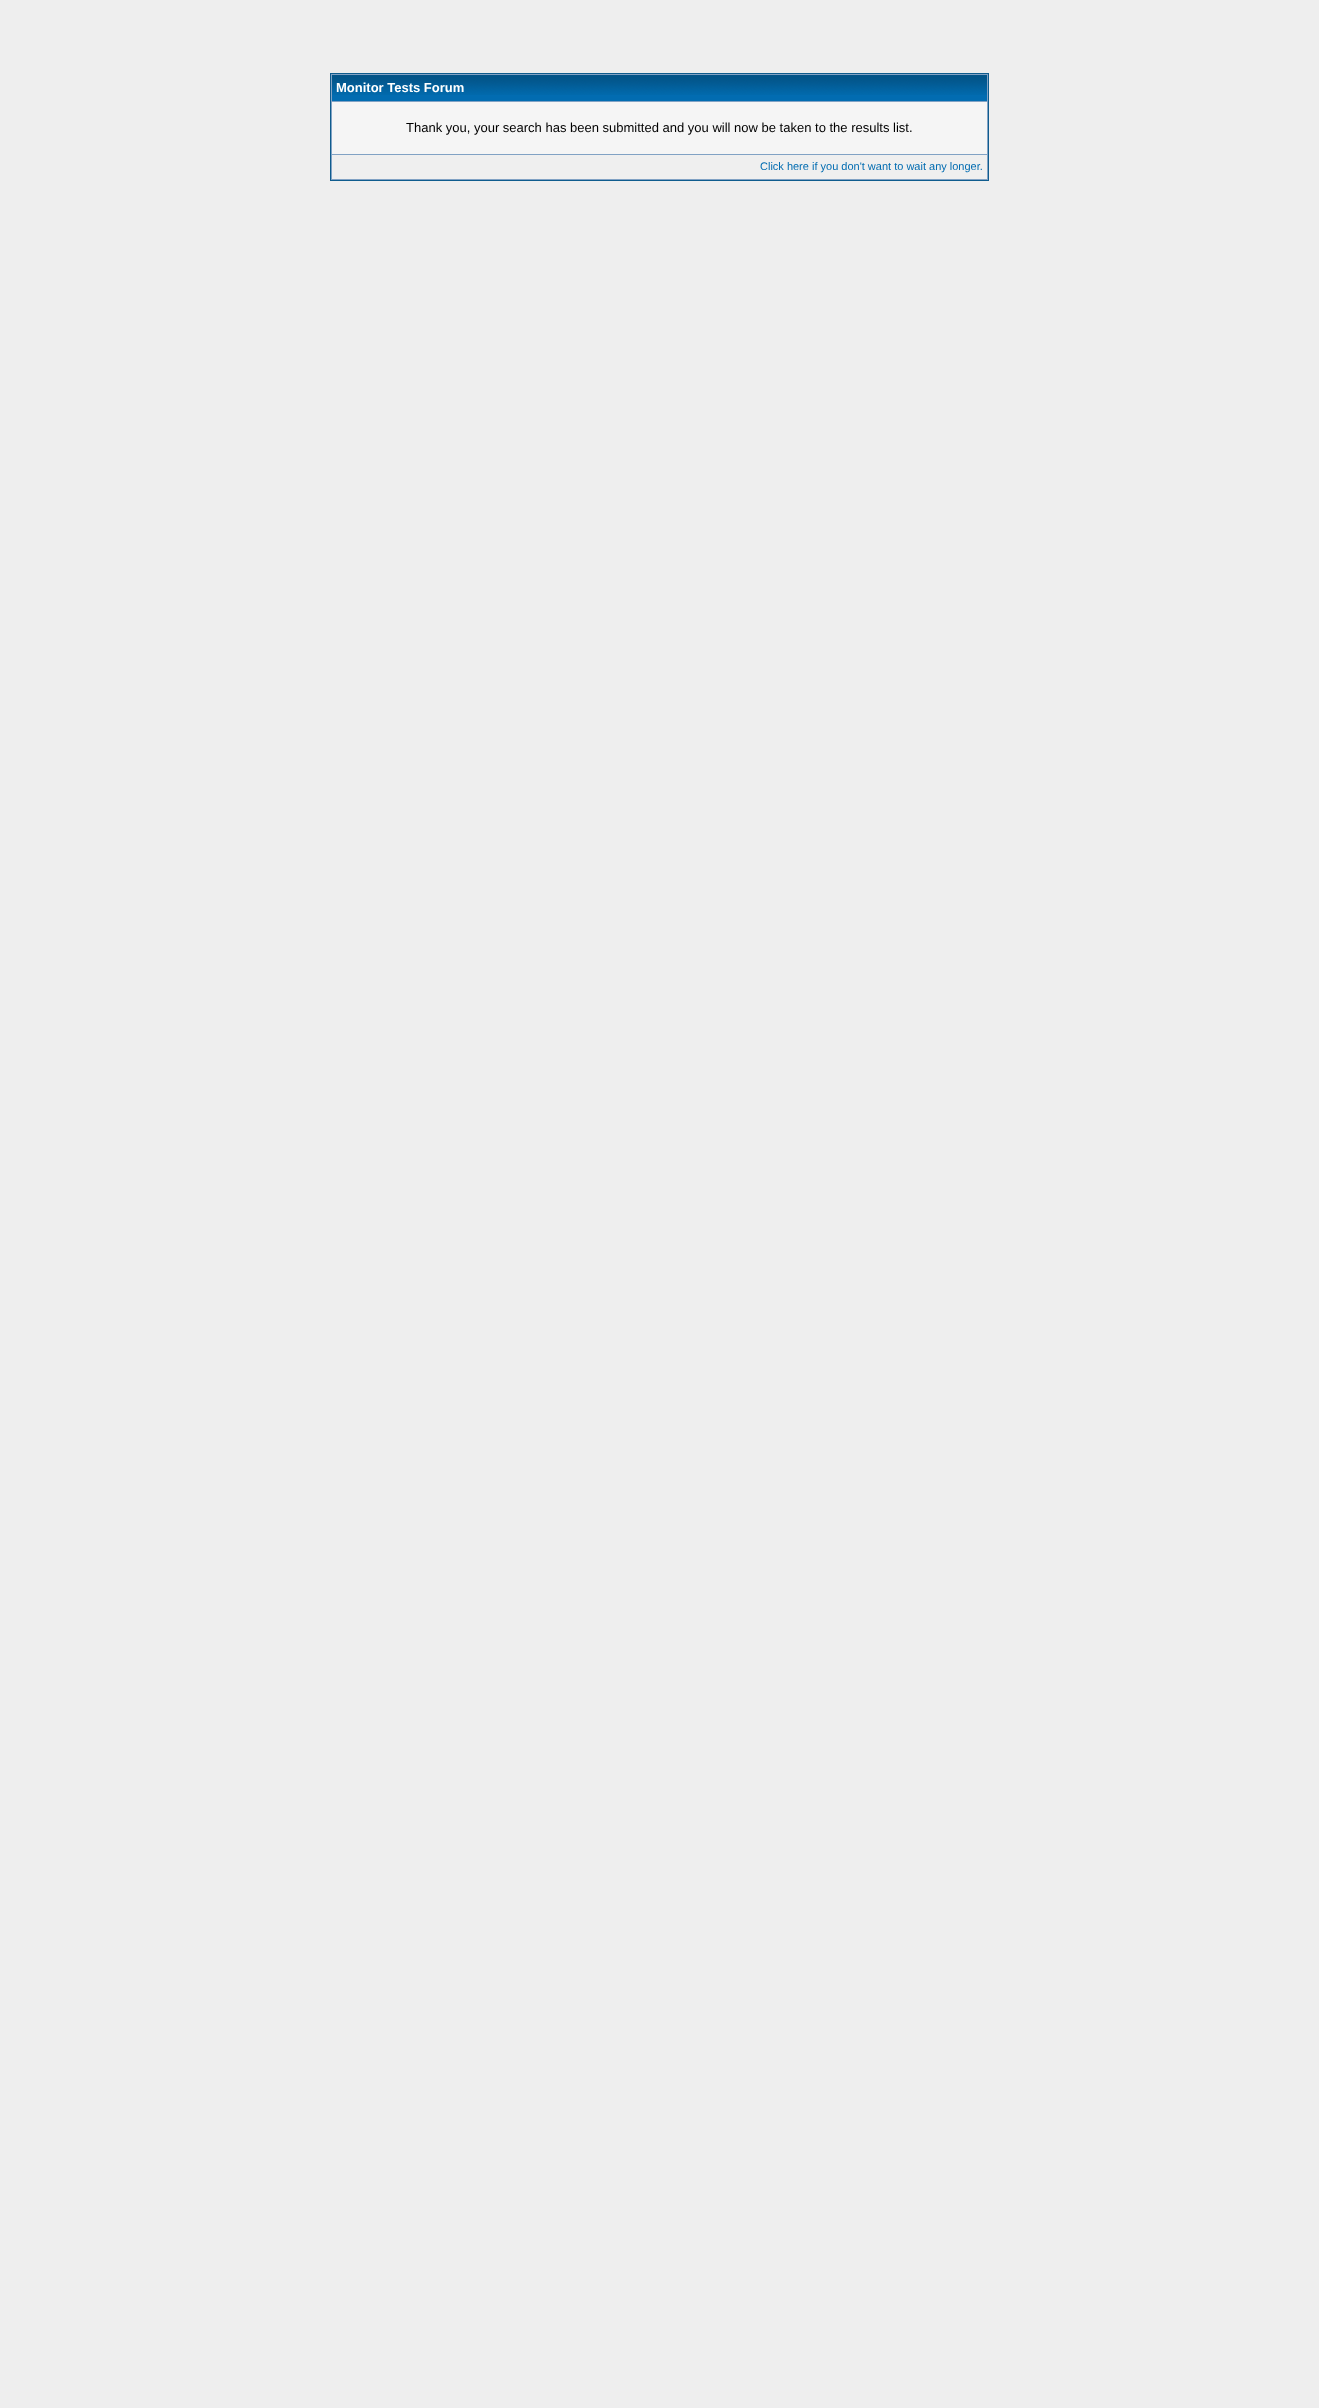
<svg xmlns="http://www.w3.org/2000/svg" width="1319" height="2408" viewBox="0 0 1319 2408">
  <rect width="100%" height="100%" fill="rgb(238,238,238)"/>
  <rect x="330.5" y="73.5" width="658" height="107" fill="rgb(129,162,196)" stroke="rgb(15,92,142)"/>
  <rect x="332" y="95" width="655" height="6" fill="rgb(2,108,177)"/>
  <image x="332" y="75" width="655" height="20" href="pic1.png"/>
  <text x="336" y="92" font-family="Liberation Sans" font-size="13" font-weight="bold" fill="rgb(255,255,255)">Monitor Tests Forum</text>
  <rect x="332" y="102" width="655" height="52" fill="rgb(245,245,245)"/>
  <text x="406" y="132" font-family="Liberation Sans" font-size="13" fill="rgb(0,0,0)">Thank you, your search has been submitted and you will now be taken to the results list.</text>
  <rect x="332" y="155" width="655" height="24" fill="rgb(239,239,239)"/>
  <text x="760" y="170" font-family="Liberation Sans" font-size="11" fill="rgb(2,108,177)">Click here if you don't want to wait any longer.</text>
</svg>
